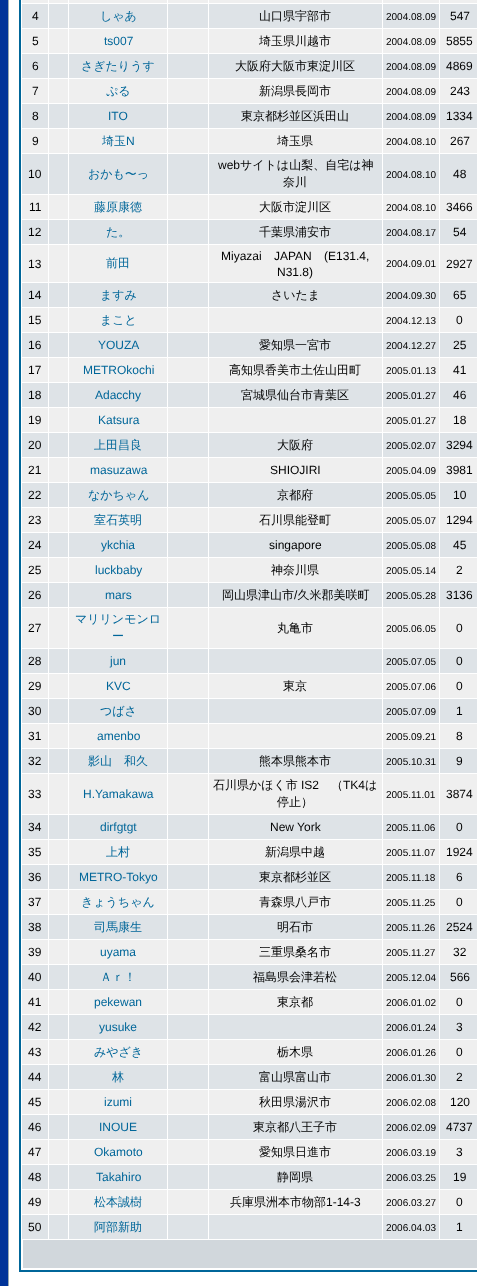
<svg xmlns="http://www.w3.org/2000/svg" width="477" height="1286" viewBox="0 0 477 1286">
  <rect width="100%" height="100%" fill="rgb(0,51,153)"/>
  <rect x="8.5" y="-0.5" width="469" height="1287" fill="rgb(255,255,255)" stroke="rgb(152,170,177)"/>
  <rect x="20" y="-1" width="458" height="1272" fill="none" stroke="rgb(0,102,153)" stroke-width="2"/>
  <rect x="22" y="0" width="26" height="3" fill="rgb(239,239,239)"/>
  <rect x="49" y="0" width="19" height="3" fill="rgb(239,239,239)"/>
  <rect x="69" y="0" width="98" height="3" fill="rgb(239,239,239)"/>
  <rect x="168" y="0" width="40" height="3" fill="rgb(239,239,239)"/>
  <rect x="209" y="0" width="173" height="3" fill="rgb(239,239,239)"/>
  <rect x="383" y="0" width="56" height="3" fill="rgb(239,239,239)"/>
  <rect x="440" y="0" width="37" height="3" fill="rgb(239,239,239)"/>
  <rect x="22" y="4" width="26" height="24" fill="rgb(222,227,231)"/>
  <text x="32" y="20" font-family="Liberation Sans" font-size="12" fill="rgb(0,0,0)">4</text>
  <rect x="49" y="4" width="19" height="24" fill="rgb(222,227,231)"/>
  <rect x="69" y="4" width="98" height="24" fill="rgb(222,227,231)"/>
  <text x="100" y="20" font-family="WenQuanYi Zen Hei" font-size="12" font-weight="500" fill="rgb(0,102,153)">しゃあ</text>
  <rect x="168" y="4" width="40" height="24" fill="rgb(222,227,231)"/>
  <rect x="209" y="4" width="173" height="24" fill="rgb(222,227,231)"/>
  <text x="259" y="20" font-family="WenQuanYi Zen Hei" font-size="12" font-weight="500" fill="rgb(0,0,0)">山口県宇部市</text>
  <rect x="383" y="4" width="56" height="24" fill="rgb(222,227,231)"/>
  <text x="386" y="20" font-family="Liberation Sans" font-size="10" fill="rgb(0,0,0)">2004.08.09</text>
  <rect x="440" y="4" width="37" height="24" fill="rgb(222,227,231)"/>
  <text x="450" y="20" font-family="Liberation Sans" font-size="12" fill="rgb(0,0,0)">547</text>
  <rect x="22" y="29" width="26" height="24" fill="rgb(239,239,239)"/>
  <text x="32" y="45" font-family="Liberation Sans" font-size="12" fill="rgb(0,0,0)">5</text>
  <rect x="49" y="29" width="19" height="24" fill="rgb(239,239,239)"/>
  <rect x="69" y="29" width="98" height="24" fill="rgb(239,239,239)"/>
  <text x="104" y="45" font-family="Liberation Sans" font-size="12" fill="rgb(0,102,153)">ts007</text>
  <rect x="168" y="29" width="40" height="24" fill="rgb(239,239,239)"/>
  <rect x="209" y="29" width="173" height="24" fill="rgb(239,239,239)"/>
  <text x="259" y="45" font-family="WenQuanYi Zen Hei" font-size="12" font-weight="500" fill="rgb(0,0,0)">埼玉県川越市</text>
  <rect x="383" y="29" width="56" height="24" fill="rgb(239,239,239)"/>
  <text x="386" y="45" font-family="Liberation Sans" font-size="10" fill="rgb(0,0,0)">2004.08.09</text>
  <rect x="440" y="29" width="37" height="24" fill="rgb(239,239,239)"/>
  <text x="446" y="45" font-family="Liberation Sans" font-size="12" fill="rgb(0,0,0)">5855</text>
  <rect x="22" y="54" width="26" height="24" fill="rgb(222,227,231)"/>
  <text x="32" y="70" font-family="Liberation Sans" font-size="12" fill="rgb(0,0,0)">6</text>
  <rect x="49" y="54" width="19" height="24" fill="rgb(222,227,231)"/>
  <rect x="69" y="54" width="98" height="24" fill="rgb(222,227,231)"/>
  <text x="81" y="70" font-family="WenQuanYi Zen Hei" font-size="12" font-weight="500" fill="rgb(0,102,153)">さぎたりうす</text>
  <rect x="168" y="54" width="40" height="24" fill="rgb(222,227,231)"/>
  <rect x="209" y="54" width="173" height="24" fill="rgb(222,227,231)"/>
  <text x="235" y="70" font-family="WenQuanYi Zen Hei" font-size="12" font-weight="500" fill="rgb(0,0,0)">大阪府大阪市東淀川区</text>
  <rect x="383" y="54" width="56" height="24" fill="rgb(222,227,231)"/>
  <text x="386" y="70" font-family="Liberation Sans" font-size="10" fill="rgb(0,0,0)">2004.08.09</text>
  <rect x="440" y="54" width="37" height="24" fill="rgb(222,227,231)"/>
  <text x="446" y="70" font-family="Liberation Sans" font-size="12" fill="rgb(0,0,0)">4869</text>
  <rect x="22" y="79" width="26" height="24" fill="rgb(239,239,239)"/>
  <text x="32" y="95" font-family="Liberation Sans" font-size="12" fill="rgb(0,0,0)">7</text>
  <rect x="49" y="79" width="19" height="24" fill="rgb(239,239,239)"/>
  <rect x="69" y="79" width="98" height="24" fill="rgb(239,239,239)"/>
  <text x="106" y="95" font-family="WenQuanYi Zen Hei" font-size="12" font-weight="500" fill="rgb(0,102,153)">ぷる</text>
  <rect x="168" y="79" width="40" height="24" fill="rgb(239,239,239)"/>
  <rect x="209" y="79" width="173" height="24" fill="rgb(239,239,239)"/>
  <text x="259" y="95" font-family="WenQuanYi Zen Hei" font-size="12" font-weight="500" fill="rgb(0,0,0)">新潟県長岡市</text>
  <rect x="383" y="79" width="56" height="24" fill="rgb(239,239,239)"/>
  <text x="386" y="95" font-family="Liberation Sans" font-size="10" fill="rgb(0,0,0)">2004.08.09</text>
  <rect x="440" y="79" width="37" height="24" fill="rgb(239,239,239)"/>
  <text x="450" y="95" font-family="Liberation Sans" font-size="12" fill="rgb(0,0,0)">243</text>
  <rect x="22" y="104" width="26" height="24" fill="rgb(222,227,231)"/>
  <text x="32" y="120" font-family="Liberation Sans" font-size="12" fill="rgb(0,0,0)">8</text>
  <rect x="49" y="104" width="19" height="24" fill="rgb(222,227,231)"/>
  <rect x="69" y="104" width="98" height="24" fill="rgb(222,227,231)"/>
  <text x="108" y="120" font-family="Liberation Sans" font-size="12" fill="rgb(0,102,153)">ITO</text>
  <rect x="168" y="104" width="40" height="24" fill="rgb(222,227,231)"/>
  <rect x="209" y="104" width="173" height="24" fill="rgb(222,227,231)"/>
  <text x="241" y="120" font-family="WenQuanYi Zen Hei" font-size="12" font-weight="500" fill="rgb(0,0,0)">東京都杉並区浜田山</text>
  <rect x="383" y="104" width="56" height="24" fill="rgb(222,227,231)"/>
  <text x="386" y="120" font-family="Liberation Sans" font-size="10" fill="rgb(0,0,0)">2004.08.09</text>
  <rect x="440" y="104" width="37" height="24" fill="rgb(222,227,231)"/>
  <text x="446" y="120" font-family="Liberation Sans" font-size="12" fill="rgb(0,0,0)">1334</text>
  <rect x="22" y="129" width="26" height="24" fill="rgb(239,239,239)"/>
  <text x="32" y="145" font-family="Liberation Sans" font-size="12" fill="rgb(0,0,0)">9</text>
  <rect x="49" y="129" width="19" height="24" fill="rgb(239,239,239)"/>
  <rect x="69" y="129" width="98" height="24" fill="rgb(239,239,239)"/>
  <text x="102" y="145" font-family="WenQuanYi Zen Hei" font-size="12" font-weight="500" fill="rgb(0,102,153)">埼玉</text>
  <text x="126" y="145" font-family="Liberation Sans" font-size="12" fill="rgb(0,102,153)">N</text>
  <rect x="168" y="129" width="40" height="24" fill="rgb(239,239,239)"/>
  <rect x="209" y="129" width="173" height="24" fill="rgb(239,239,239)"/>
  <text x="277" y="145" font-family="WenQuanYi Zen Hei" font-size="12" font-weight="500" fill="rgb(0,0,0)">埼玉県</text>
  <rect x="383" y="129" width="56" height="24" fill="rgb(239,239,239)"/>
  <text x="386" y="145" font-family="Liberation Sans" font-size="10" fill="rgb(0,0,0)">2004.08.10</text>
  <rect x="440" y="129" width="37" height="24" fill="rgb(239,239,239)"/>
  <text x="450" y="145" font-family="Liberation Sans" font-size="12" fill="rgb(0,0,0)">267</text>
  <rect x="22" y="154" width="26" height="40" fill="rgb(222,227,231)"/>
  <text x="28" y="178" font-family="Liberation Sans" font-size="12" fill="rgb(0,0,0)">10</text>
  <rect x="49" y="154" width="19" height="40" fill="rgb(222,227,231)"/>
  <rect x="69" y="154" width="98" height="40" fill="rgb(222,227,231)"/>
  <text x="88" y="178" font-family="WenQuanYi Zen Hei" font-size="12" font-weight="500" fill="rgb(0,102,153)">おかも〜っ</text>
  <rect x="168" y="154" width="40" height="40" fill="rgb(222,227,231)"/>
  <rect x="209" y="154" width="173" height="40" fill="rgb(222,227,231)"/>
  <text x="218" y="169" font-family="Liberation Sans" font-size="12" fill="rgb(0,0,0)">web</text>
  <g font-family="WenQuanYi Zen Hei" font-size="12" font-weight="500" fill="rgb(0,0,0)">
    <text x="240" y="169">サイトは山梨、自宅は神</text>
    <text x="283" y="186">奈川</text>
  </g>
  <rect x="383" y="154" width="56" height="40" fill="rgb(222,227,231)"/>
  <text x="386" y="178" font-family="Liberation Sans" font-size="10" fill="rgb(0,0,0)">2004.08.10</text>
  <rect x="440" y="154" width="37" height="40" fill="rgb(222,227,231)"/>
  <text x="453" y="178" font-family="Liberation Sans" font-size="12" fill="rgb(0,0,0)">48</text>
  <rect x="22" y="195" width="26" height="24" fill="rgb(239,239,239)"/>
  <text x="29" y="211" font-family="Liberation Sans" font-size="12" fill="rgb(0,0,0)">11</text>
  <rect x="49" y="195" width="19" height="24" fill="rgb(239,239,239)"/>
  <rect x="69" y="195" width="98" height="24" fill="rgb(239,239,239)"/>
  <text x="94" y="211" font-family="WenQuanYi Zen Hei" font-size="12" font-weight="500" fill="rgb(0,102,153)">藤原康徳</text>
  <rect x="168" y="195" width="40" height="24" fill="rgb(239,239,239)"/>
  <rect x="209" y="195" width="173" height="24" fill="rgb(239,239,239)"/>
  <text x="259" y="211" font-family="WenQuanYi Zen Hei" font-size="12" font-weight="500" fill="rgb(0,0,0)">大阪市淀川区</text>
  <rect x="383" y="195" width="56" height="24" fill="rgb(239,239,239)"/>
  <text x="386" y="211" font-family="Liberation Sans" font-size="10" fill="rgb(0,0,0)">2004.08.10</text>
  <rect x="440" y="195" width="37" height="24" fill="rgb(239,239,239)"/>
  <text x="446" y="211" font-family="Liberation Sans" font-size="12" fill="rgb(0,0,0)">3466</text>
  <rect x="22" y="220" width="26" height="24" fill="rgb(222,227,231)"/>
  <text x="28" y="236" font-family="Liberation Sans" font-size="12" fill="rgb(0,0,0)">12</text>
  <rect x="49" y="220" width="19" height="24" fill="rgb(222,227,231)"/>
  <rect x="69" y="220" width="98" height="24" fill="rgb(222,227,231)"/>
  <text x="106" y="236" font-family="WenQuanYi Zen Hei" font-size="12" font-weight="500" fill="rgb(0,102,153)">た。</text>
  <rect x="168" y="220" width="40" height="24" fill="rgb(222,227,231)"/>
  <rect x="209" y="220" width="173" height="24" fill="rgb(222,227,231)"/>
  <text x="259" y="236" font-family="WenQuanYi Zen Hei" font-size="12" font-weight="500" fill="rgb(0,0,0)">千葉県浦安市</text>
  <rect x="383" y="220" width="56" height="24" fill="rgb(222,227,231)"/>
  <text x="386" y="236" font-family="Liberation Sans" font-size="10" fill="rgb(0,0,0)">2004.08.17</text>
  <rect x="440" y="220" width="37" height="24" fill="rgb(222,227,231)"/>
  <text x="453" y="236" font-family="Liberation Sans" font-size="12" fill="rgb(0,0,0)">54</text>
  <rect x="22" y="245" width="26" height="37" fill="rgb(239,239,239)"/>
  <text x="28" y="268" font-family="Liberation Sans" font-size="12" fill="rgb(0,0,0)">13</text>
  <rect x="49" y="245" width="19" height="37" fill="rgb(239,239,239)"/>
  <rect x="69" y="245" width="98" height="37" fill="rgb(239,239,239)"/>
  <text x="106" y="267" font-family="WenQuanYi Zen Hei" font-size="12" font-weight="500" fill="rgb(0,102,153)">前田</text>
  <rect x="168" y="245" width="40" height="37" fill="rgb(239,239,239)"/>
  <rect x="209" y="245" width="173" height="37" fill="rgb(239,239,239)"/>
  <g font-family="Liberation Sans" font-size="12" fill="rgb(0,0,0)">
    <text x="221" y="260">Miyazai</text>
    <text x="274" y="260">JAPAN</text>
    <text x="324" y="260">(E131.4,</text>
    <text x="277" y="276">N31.8)</text>
  </g>
  <rect x="383" y="245" width="56" height="37" fill="rgb(239,239,239)"/>
  <text x="386" y="267" font-family="Liberation Sans" font-size="10" fill="rgb(0,0,0)">2004.09.01</text>
  <rect x="440" y="245" width="37" height="37" fill="rgb(239,239,239)"/>
  <text x="446" y="268" font-family="Liberation Sans" font-size="12" fill="rgb(0,0,0)">2927</text>
  <rect x="22" y="283" width="26" height="24" fill="rgb(222,227,231)"/>
  <text x="28" y="299" font-family="Liberation Sans" font-size="12" fill="rgb(0,0,0)">14</text>
  <rect x="49" y="283" width="19" height="24" fill="rgb(222,227,231)"/>
  <rect x="69" y="283" width="98" height="24" fill="rgb(222,227,231)"/>
  <text x="100" y="299" font-family="WenQuanYi Zen Hei" font-size="12" font-weight="500" fill="rgb(0,102,153)">ますみ</text>
  <rect x="168" y="283" width="40" height="24" fill="rgb(222,227,231)"/>
  <rect x="209" y="283" width="173" height="24" fill="rgb(222,227,231)"/>
  <text x="271" y="299" font-family="WenQuanYi Zen Hei" font-size="12" font-weight="500" fill="rgb(0,0,0)">さいたま</text>
  <rect x="383" y="283" width="56" height="24" fill="rgb(222,227,231)"/>
  <text x="386" y="299" font-family="Liberation Sans" font-size="10" fill="rgb(0,0,0)">2004.09.30</text>
  <rect x="440" y="283" width="37" height="24" fill="rgb(222,227,231)"/>
  <text x="453" y="299" font-family="Liberation Sans" font-size="12" fill="rgb(0,0,0)">65</text>
  <rect x="22" y="308" width="26" height="24" fill="rgb(239,239,239)"/>
  <text x="28" y="324" font-family="Liberation Sans" font-size="12" fill="rgb(0,0,0)">15</text>
  <rect x="49" y="308" width="19" height="24" fill="rgb(239,239,239)"/>
  <rect x="69" y="308" width="98" height="24" fill="rgb(239,239,239)"/>
  <text x="100" y="324" font-family="WenQuanYi Zen Hei" font-size="12" font-weight="500" fill="rgb(0,102,153)">まこと</text>
  <rect x="168" y="308" width="40" height="24" fill="rgb(239,239,239)"/>
  <rect x="209" y="308" width="173" height="24" fill="rgb(239,239,239)"/>
  <rect x="383" y="308" width="56" height="24" fill="rgb(239,239,239)"/>
  <text x="386" y="324" font-family="Liberation Sans" font-size="10" fill="rgb(0,0,0)">2004.12.13</text>
  <rect x="440" y="308" width="37" height="24" fill="rgb(239,239,239)"/>
  <text x="456" y="324" font-family="Liberation Sans" font-size="12" fill="rgb(0,0,0)">0</text>
  <rect x="22" y="333" width="26" height="24" fill="rgb(222,227,231)"/>
  <text x="28" y="349" font-family="Liberation Sans" font-size="12" fill="rgb(0,0,0)">16</text>
  <rect x="49" y="333" width="19" height="24" fill="rgb(222,227,231)"/>
  <rect x="69" y="333" width="98" height="24" fill="rgb(222,227,231)"/>
  <text x="98" y="349" font-family="Liberation Sans" font-size="12" fill="rgb(0,102,153)">YOUZA</text>
  <rect x="168" y="333" width="40" height="24" fill="rgb(222,227,231)"/>
  <rect x="209" y="333" width="173" height="24" fill="rgb(222,227,231)"/>
  <text x="259" y="349" font-family="WenQuanYi Zen Hei" font-size="12" font-weight="500" fill="rgb(0,0,0)">愛知県一宮市</text>
  <rect x="383" y="333" width="56" height="24" fill="rgb(222,227,231)"/>
  <text x="386" y="349" font-family="Liberation Sans" font-size="10" fill="rgb(0,0,0)">2004.12.27</text>
  <rect x="440" y="333" width="37" height="24" fill="rgb(222,227,231)"/>
  <text x="453" y="349" font-family="Liberation Sans" font-size="12" fill="rgb(0,0,0)">25</text>
  <rect x="22" y="358" width="26" height="24" fill="rgb(239,239,239)"/>
  <text x="28" y="374" font-family="Liberation Sans" font-size="12" fill="rgb(0,0,0)">17</text>
  <rect x="49" y="358" width="19" height="24" fill="rgb(239,239,239)"/>
  <rect x="69" y="358" width="98" height="24" fill="rgb(239,239,239)"/>
  <text x="83" y="374" font-family="Liberation Sans" font-size="12" fill="rgb(0,102,153)">METROkochi</text>
  <rect x="168" y="358" width="40" height="24" fill="rgb(239,239,239)"/>
  <rect x="209" y="358" width="173" height="24" fill="rgb(239,239,239)"/>
  <text x="229" y="374" font-family="WenQuanYi Zen Hei" font-size="12" font-weight="500" fill="rgb(0,0,0)">高知県香美市土佐山田町</text>
  <rect x="383" y="358" width="56" height="24" fill="rgb(239,239,239)"/>
  <text x="386" y="374" font-family="Liberation Sans" font-size="10" fill="rgb(0,0,0)">2005.01.13</text>
  <rect x="440" y="358" width="37" height="24" fill="rgb(239,239,239)"/>
  <text x="453" y="374" font-family="Liberation Sans" font-size="12" fill="rgb(0,0,0)">41</text>
  <rect x="22" y="383" width="26" height="24" fill="rgb(222,227,231)"/>
  <text x="28" y="399" font-family="Liberation Sans" font-size="12" fill="rgb(0,0,0)">18</text>
  <rect x="49" y="383" width="19" height="24" fill="rgb(222,227,231)"/>
  <rect x="69" y="383" width="98" height="24" fill="rgb(222,227,231)"/>
  <text x="95" y="399" font-family="Liberation Sans" font-size="12" fill="rgb(0,102,153)">Adacchy</text>
  <rect x="168" y="383" width="40" height="24" fill="rgb(222,227,231)"/>
  <rect x="209" y="383" width="173" height="24" fill="rgb(222,227,231)"/>
  <text x="241" y="399" font-family="WenQuanYi Zen Hei" font-size="12" font-weight="500" fill="rgb(0,0,0)">宮城県仙台市青葉区</text>
  <rect x="383" y="383" width="56" height="24" fill="rgb(222,227,231)"/>
  <text x="386" y="399" font-family="Liberation Sans" font-size="10" fill="rgb(0,0,0)">2005.01.27</text>
  <rect x="440" y="383" width="37" height="24" fill="rgb(222,227,231)"/>
  <text x="453" y="399" font-family="Liberation Sans" font-size="12" fill="rgb(0,0,0)">46</text>
  <rect x="22" y="408" width="26" height="24" fill="rgb(239,239,239)"/>
  <text x="28" y="424" font-family="Liberation Sans" font-size="12" fill="rgb(0,0,0)">19</text>
  <rect x="49" y="408" width="19" height="24" fill="rgb(239,239,239)"/>
  <rect x="69" y="408" width="98" height="24" fill="rgb(239,239,239)"/>
  <text x="98" y="424" font-family="Liberation Sans" font-size="12" fill="rgb(0,102,153)">Katsura</text>
  <rect x="168" y="408" width="40" height="24" fill="rgb(239,239,239)"/>
  <rect x="209" y="408" width="173" height="24" fill="rgb(239,239,239)"/>
  <rect x="383" y="408" width="56" height="24" fill="rgb(239,239,239)"/>
  <text x="386" y="424" font-family="Liberation Sans" font-size="10" fill="rgb(0,0,0)">2005.01.27</text>
  <rect x="440" y="408" width="37" height="24" fill="rgb(239,239,239)"/>
  <text x="453" y="424" font-family="Liberation Sans" font-size="12" fill="rgb(0,0,0)">18</text>
  <rect x="22" y="433" width="26" height="24" fill="rgb(222,227,231)"/>
  <text x="28" y="449" font-family="Liberation Sans" font-size="12" fill="rgb(0,0,0)">20</text>
  <rect x="49" y="433" width="19" height="24" fill="rgb(222,227,231)"/>
  <rect x="69" y="433" width="98" height="24" fill="rgb(222,227,231)"/>
  <text x="94" y="449" font-family="WenQuanYi Zen Hei" font-size="12" font-weight="500" fill="rgb(0,102,153)">上田昌良</text>
  <rect x="168" y="433" width="40" height="24" fill="rgb(222,227,231)"/>
  <rect x="209" y="433" width="173" height="24" fill="rgb(222,227,231)"/>
  <text x="277" y="449" font-family="WenQuanYi Zen Hei" font-size="12" font-weight="500" fill="rgb(0,0,0)">大阪府</text>
  <rect x="383" y="433" width="56" height="24" fill="rgb(222,227,231)"/>
  <text x="386" y="449" font-family="Liberation Sans" font-size="10" fill="rgb(0,0,0)">2005.02.07</text>
  <rect x="440" y="433" width="37" height="24" fill="rgb(222,227,231)"/>
  <text x="446" y="449" font-family="Liberation Sans" font-size="12" fill="rgb(0,0,0)">3294</text>
  <rect x="22" y="458" width="26" height="24" fill="rgb(239,239,239)"/>
  <text x="28" y="474" font-family="Liberation Sans" font-size="12" fill="rgb(0,0,0)">21</text>
  <rect x="49" y="458" width="19" height="24" fill="rgb(239,239,239)"/>
  <rect x="69" y="458" width="98" height="24" fill="rgb(239,239,239)"/>
  <text x="90" y="474" font-family="Liberation Sans" font-size="12" fill="rgb(0,102,153)">masuzawa</text>
  <rect x="168" y="458" width="40" height="24" fill="rgb(239,239,239)"/>
  <rect x="209" y="458" width="173" height="24" fill="rgb(239,239,239)"/>
  <text x="270" y="474" font-family="Liberation Sans" font-size="12" fill="rgb(0,0,0)">SHIOJIRI</text>
  <rect x="383" y="458" width="56" height="24" fill="rgb(239,239,239)"/>
  <text x="386" y="474" font-family="Liberation Sans" font-size="10" fill="rgb(0,0,0)">2005.04.09</text>
  <rect x="440" y="458" width="37" height="24" fill="rgb(239,239,239)"/>
  <text x="446" y="474" font-family="Liberation Sans" font-size="12" fill="rgb(0,0,0)">3981</text>
  <rect x="22" y="483" width="26" height="24" fill="rgb(222,227,231)"/>
  <text x="28" y="499" font-family="Liberation Sans" font-size="12" fill="rgb(0,0,0)">22</text>
  <rect x="49" y="483" width="19" height="24" fill="rgb(222,227,231)"/>
  <rect x="69" y="483" width="98" height="24" fill="rgb(222,227,231)"/>
  <text x="88" y="499" font-family="WenQuanYi Zen Hei" font-size="12" font-weight="500" fill="rgb(0,102,153)">なかちゃん</text>
  <rect x="168" y="483" width="40" height="24" fill="rgb(222,227,231)"/>
  <rect x="209" y="483" width="173" height="24" fill="rgb(222,227,231)"/>
  <text x="277" y="499" font-family="WenQuanYi Zen Hei" font-size="12" font-weight="500" fill="rgb(0,0,0)">京都府</text>
  <rect x="383" y="483" width="56" height="24" fill="rgb(222,227,231)"/>
  <text x="386" y="499" font-family="Liberation Sans" font-size="10" fill="rgb(0,0,0)">2005.05.05</text>
  <rect x="440" y="483" width="37" height="24" fill="rgb(222,227,231)"/>
  <text x="453" y="499" font-family="Liberation Sans" font-size="12" fill="rgb(0,0,0)">10</text>
  <rect x="22" y="508" width="26" height="24" fill="rgb(239,239,239)"/>
  <text x="28" y="524" font-family="Liberation Sans" font-size="12" fill="rgb(0,0,0)">23</text>
  <rect x="49" y="508" width="19" height="24" fill="rgb(239,239,239)"/>
  <rect x="69" y="508" width="98" height="24" fill="rgb(239,239,239)"/>
  <text x="94" y="524" font-family="WenQuanYi Zen Hei" font-size="12" font-weight="500" fill="rgb(0,102,153)">室石英明</text>
  <rect x="168" y="508" width="40" height="24" fill="rgb(239,239,239)"/>
  <rect x="209" y="508" width="173" height="24" fill="rgb(239,239,239)"/>
  <text x="259" y="524" font-family="WenQuanYi Zen Hei" font-size="12" font-weight="500" fill="rgb(0,0,0)">石川県能登町</text>
  <rect x="383" y="508" width="56" height="24" fill="rgb(239,239,239)"/>
  <text x="386" y="524" font-family="Liberation Sans" font-size="10" fill="rgb(0,0,0)">2005.05.07</text>
  <rect x="440" y="508" width="37" height="24" fill="rgb(239,239,239)"/>
  <text x="446" y="524" font-family="Liberation Sans" font-size="12" fill="rgb(0,0,0)">1294</text>
  <rect x="22" y="533" width="26" height="24" fill="rgb(222,227,231)"/>
  <text x="28" y="549" font-family="Liberation Sans" font-size="12" fill="rgb(0,0,0)">24</text>
  <rect x="49" y="533" width="19" height="24" fill="rgb(222,227,231)"/>
  <rect x="69" y="533" width="98" height="24" fill="rgb(222,227,231)"/>
  <text x="101" y="549" font-family="Liberation Sans" font-size="12" fill="rgb(0,102,153)">ykchia</text>
  <rect x="168" y="533" width="40" height="24" fill="rgb(222,227,231)"/>
  <rect x="209" y="533" width="173" height="24" fill="rgb(222,227,231)"/>
  <text x="269" y="549" font-family="Liberation Sans" font-size="12" fill="rgb(0,0,0)">singapore</text>
  <rect x="383" y="533" width="56" height="24" fill="rgb(222,227,231)"/>
  <text x="386" y="549" font-family="Liberation Sans" font-size="10" fill="rgb(0,0,0)">2005.05.08</text>
  <rect x="440" y="533" width="37" height="24" fill="rgb(222,227,231)"/>
  <text x="453" y="549" font-family="Liberation Sans" font-size="12" fill="rgb(0,0,0)">45</text>
  <rect x="22" y="558" width="26" height="24" fill="rgb(239,239,239)"/>
  <text x="28" y="574" font-family="Liberation Sans" font-size="12" fill="rgb(0,0,0)">25</text>
  <rect x="49" y="558" width="19" height="24" fill="rgb(239,239,239)"/>
  <rect x="69" y="558" width="98" height="24" fill="rgb(239,239,239)"/>
  <text x="95" y="574" font-family="Liberation Sans" font-size="12" fill="rgb(0,102,153)">luckbaby</text>
  <rect x="168" y="558" width="40" height="24" fill="rgb(239,239,239)"/>
  <rect x="209" y="558" width="173" height="24" fill="rgb(239,239,239)"/>
  <text x="271" y="574" font-family="WenQuanYi Zen Hei" font-size="12" font-weight="500" fill="rgb(0,0,0)">神奈川県</text>
  <rect x="383" y="558" width="56" height="24" fill="rgb(239,239,239)"/>
  <text x="386" y="574" font-family="Liberation Sans" font-size="10" fill="rgb(0,0,0)">2005.05.14</text>
  <rect x="440" y="558" width="37" height="24" fill="rgb(239,239,239)"/>
  <text x="456" y="574" font-family="Liberation Sans" font-size="12" fill="rgb(0,0,0)">2</text>
  <rect x="22" y="583" width="26" height="24" fill="rgb(222,227,231)"/>
  <text x="28" y="599" font-family="Liberation Sans" font-size="12" fill="rgb(0,0,0)">26</text>
  <rect x="49" y="583" width="19" height="24" fill="rgb(222,227,231)"/>
  <rect x="69" y="583" width="98" height="24" fill="rgb(222,227,231)"/>
  <text x="105" y="599" font-family="Liberation Sans" font-size="12" fill="rgb(0,102,153)">mars</text>
  <rect x="168" y="583" width="40" height="24" fill="rgb(222,227,231)"/>
  <rect x="209" y="583" width="173" height="24" fill="rgb(222,227,231)"/>
  <text x="222" y="599" font-family="WenQuanYi Zen Hei" font-size="12" font-weight="500" fill="rgb(0,0,0)">岡山県津山市 久米郡美咲町</text>
  <text x="294" y="599" font-family="Liberation Sans" font-size="12" fill="rgb(0,0,0)">/</text>
  <rect x="383" y="583" width="56" height="24" fill="rgb(222,227,231)"/>
  <text x="386" y="599" font-family="Liberation Sans" font-size="10" fill="rgb(0,0,0)">2005.05.28</text>
  <rect x="440" y="583" width="37" height="24" fill="rgb(222,227,231)"/>
  <text x="446" y="599" font-family="Liberation Sans" font-size="12" fill="rgb(0,0,0)">3136</text>
  <rect x="22" y="608" width="26" height="40" fill="rgb(239,239,239)"/>
  <text x="28" y="632" font-family="Liberation Sans" font-size="12" fill="rgb(0,0,0)">27</text>
  <rect x="49" y="608" width="19" height="40" fill="rgb(239,239,239)"/>
  <rect x="69" y="608" width="98" height="40" fill="rgb(239,239,239)"/>
  <g font-family="WenQuanYi Zen Hei" font-size="12" font-weight="500" fill="rgb(0,102,153)">
    <text x="75" y="623">マリリンモンロ</text>
    <text x="112" y="640">ー</text>
  </g>
  <rect x="168" y="608" width="40" height="40" fill="rgb(239,239,239)"/>
  <rect x="209" y="608" width="173" height="40" fill="rgb(239,239,239)"/>
  <text x="277" y="632" font-family="WenQuanYi Zen Hei" font-size="12" font-weight="500" fill="rgb(0,0,0)">丸亀市</text>
  <rect x="383" y="608" width="56" height="40" fill="rgb(239,239,239)"/>
  <text x="386" y="632" font-family="Liberation Sans" font-size="10" fill="rgb(0,0,0)">2005.06.05</text>
  <rect x="440" y="608" width="37" height="40" fill="rgb(239,239,239)"/>
  <text x="456" y="632" font-family="Liberation Sans" font-size="12" fill="rgb(0,0,0)">0</text>
  <rect x="22" y="649" width="26" height="24" fill="rgb(222,227,231)"/>
  <text x="28" y="665" font-family="Liberation Sans" font-size="12" fill="rgb(0,0,0)">28</text>
  <rect x="49" y="649" width="19" height="24" fill="rgb(222,227,231)"/>
  <rect x="69" y="649" width="98" height="24" fill="rgb(222,227,231)"/>
  <text x="110" y="665" font-family="Liberation Sans" font-size="12" fill="rgb(0,102,153)">jun</text>
  <rect x="168" y="649" width="40" height="24" fill="rgb(222,227,231)"/>
  <rect x="209" y="649" width="173" height="24" fill="rgb(222,227,231)"/>
  <rect x="383" y="649" width="56" height="24" fill="rgb(222,227,231)"/>
  <text x="386" y="665" font-family="Liberation Sans" font-size="10" fill="rgb(0,0,0)">2005.07.05</text>
  <rect x="440" y="649" width="37" height="24" fill="rgb(222,227,231)"/>
  <text x="456" y="665" font-family="Liberation Sans" font-size="12" fill="rgb(0,0,0)">0</text>
  <rect x="22" y="674" width="26" height="24" fill="rgb(239,239,239)"/>
  <text x="28" y="690" font-family="Liberation Sans" font-size="12" fill="rgb(0,0,0)">29</text>
  <rect x="49" y="674" width="19" height="24" fill="rgb(239,239,239)"/>
  <rect x="69" y="674" width="98" height="24" fill="rgb(239,239,239)"/>
  <text x="106" y="690" font-family="Liberation Sans" font-size="12" fill="rgb(0,102,153)">KVC</text>
  <rect x="168" y="674" width="40" height="24" fill="rgb(239,239,239)"/>
  <rect x="209" y="674" width="173" height="24" fill="rgb(239,239,239)"/>
  <text x="283" y="690" font-family="WenQuanYi Zen Hei" font-size="12" font-weight="500" fill="rgb(0,0,0)">東京</text>
  <rect x="383" y="674" width="56" height="24" fill="rgb(239,239,239)"/>
  <text x="386" y="690" font-family="Liberation Sans" font-size="10" fill="rgb(0,0,0)">2005.07.06</text>
  <rect x="440" y="674" width="37" height="24" fill="rgb(239,239,239)"/>
  <text x="456" y="690" font-family="Liberation Sans" font-size="12" fill="rgb(0,0,0)">0</text>
  <rect x="22" y="699" width="26" height="24" fill="rgb(222,227,231)"/>
  <text x="28" y="715" font-family="Liberation Sans" font-size="12" fill="rgb(0,0,0)">30</text>
  <rect x="49" y="699" width="19" height="24" fill="rgb(222,227,231)"/>
  <rect x="69" y="699" width="98" height="24" fill="rgb(222,227,231)"/>
  <text x="100" y="715" font-family="WenQuanYi Zen Hei" font-size="12" font-weight="500" fill="rgb(0,102,153)">つばさ</text>
  <rect x="168" y="699" width="40" height="24" fill="rgb(222,227,231)"/>
  <rect x="209" y="699" width="173" height="24" fill="rgb(222,227,231)"/>
  <rect x="383" y="699" width="56" height="24" fill="rgb(222,227,231)"/>
  <text x="386" y="715" font-family="Liberation Sans" font-size="10" fill="rgb(0,0,0)">2005.07.09</text>
  <rect x="440" y="699" width="37" height="24" fill="rgb(222,227,231)"/>
  <text x="456" y="715" font-family="Liberation Sans" font-size="12" fill="rgb(0,0,0)">1</text>
  <rect x="22" y="724" width="26" height="24" fill="rgb(239,239,239)"/>
  <text x="28" y="740" font-family="Liberation Sans" font-size="12" fill="rgb(0,0,0)">31</text>
  <rect x="49" y="724" width="19" height="24" fill="rgb(239,239,239)"/>
  <rect x="69" y="724" width="98" height="24" fill="rgb(239,239,239)"/>
  <text x="97" y="740" font-family="Liberation Sans" font-size="12" fill="rgb(0,102,153)">amenbo</text>
  <rect x="168" y="724" width="40" height="24" fill="rgb(239,239,239)"/>
  <rect x="209" y="724" width="173" height="24" fill="rgb(239,239,239)"/>
  <rect x="383" y="724" width="56" height="24" fill="rgb(239,239,239)"/>
  <text x="386" y="740" font-family="Liberation Sans" font-size="10" fill="rgb(0,0,0)">2005.09.21</text>
  <rect x="440" y="724" width="37" height="24" fill="rgb(239,239,239)"/>
  <text x="456" y="740" font-family="Liberation Sans" font-size="12" fill="rgb(0,0,0)">8</text>
  <rect x="22" y="749" width="26" height="24" fill="rgb(222,227,231)"/>
  <text x="28" y="765" font-family="Liberation Sans" font-size="12" fill="rgb(0,0,0)">32</text>
  <rect x="49" y="749" width="19" height="24" fill="rgb(222,227,231)"/>
  <rect x="69" y="749" width="98" height="24" fill="rgb(222,227,231)"/>
  <text x="88" y="765" font-family="WenQuanYi Zen Hei" font-size="12" font-weight="500" fill="rgb(0,102,153)">影山　和久</text>
  <rect x="168" y="749" width="40" height="24" fill="rgb(222,227,231)"/>
  <rect x="209" y="749" width="173" height="24" fill="rgb(222,227,231)"/>
  <text x="259" y="765" font-family="WenQuanYi Zen Hei" font-size="12" font-weight="500" fill="rgb(0,0,0)">熊本県熊本市</text>
  <rect x="383" y="749" width="56" height="24" fill="rgb(222,227,231)"/>
  <text x="386" y="765" font-family="Liberation Sans" font-size="10" fill="rgb(0,0,0)">2005.10.31</text>
  <rect x="440" y="749" width="37" height="24" fill="rgb(222,227,231)"/>
  <text x="456" y="765" font-family="Liberation Sans" font-size="12" fill="rgb(0,0,0)">9</text>
  <rect x="22" y="774" width="26" height="40" fill="rgb(239,239,239)"/>
  <text x="28" y="798" font-family="Liberation Sans" font-size="12" fill="rgb(0,0,0)">33</text>
  <rect x="49" y="774" width="19" height="40" fill="rgb(239,239,239)"/>
  <rect x="69" y="774" width="98" height="40" fill="rgb(239,239,239)"/>
  <text x="83" y="798" font-family="Liberation Sans" font-size="12" fill="rgb(0,102,153)">H.Yamakawa</text>
  <rect x="168" y="774" width="40" height="40" fill="rgb(239,239,239)"/>
  <rect x="209" y="774" width="173" height="40" fill="rgb(239,239,239)"/>
  <text x="213" y="789" font-family="WenQuanYi Zen Hei" font-size="12" font-weight="500" fill="rgb(0,0,0)">石川県かほく市</text>
  <text x="301" y="789" font-family="Liberation Sans" font-size="12" fill="rgb(0,0,0)">IS2</text>
  <text x="331" y="789" font-family="WenQuanYi Zen Hei" font-size="12" font-weight="500" fill="rgb(0,0,0)">（</text>
  <text x="343" y="789" font-family="Liberation Sans" font-size="12" fill="rgb(0,0,0)">TK4</text>
  <g font-family="WenQuanYi Zen Hei" font-size="12" font-weight="500" fill="rgb(0,0,0)">
    <text x="365" y="789">は</text>
    <text x="277" y="806">停止）</text>
  </g>
  <rect x="383" y="774" width="56" height="40" fill="rgb(239,239,239)"/>
  <text x="386" y="798" font-family="Liberation Sans" font-size="10" fill="rgb(0,0,0)">2005.11.01</text>
  <rect x="440" y="774" width="37" height="40" fill="rgb(239,239,239)"/>
  <text x="446" y="798" font-family="Liberation Sans" font-size="12" fill="rgb(0,0,0)">3874</text>
  <rect x="22" y="815" width="26" height="24" fill="rgb(222,227,231)"/>
  <text x="28" y="831" font-family="Liberation Sans" font-size="12" fill="rgb(0,0,0)">34</text>
  <rect x="49" y="815" width="19" height="24" fill="rgb(222,227,231)"/>
  <rect x="69" y="815" width="98" height="24" fill="rgb(222,227,231)"/>
  <text x="100" y="831" font-family="Liberation Sans" font-size="12" fill="rgb(0,102,153)">dirfgtgt</text>
  <rect x="168" y="815" width="40" height="24" fill="rgb(222,227,231)"/>
  <rect x="209" y="815" width="173" height="24" fill="rgb(222,227,231)"/>
  <text x="270" y="831" font-family="Liberation Sans" font-size="12" fill="rgb(0,0,0)">New York</text>
  <rect x="383" y="815" width="56" height="24" fill="rgb(222,227,231)"/>
  <text x="386" y="831" font-family="Liberation Sans" font-size="10" fill="rgb(0,0,0)">2005.11.06</text>
  <rect x="440" y="815" width="37" height="24" fill="rgb(222,227,231)"/>
  <text x="456" y="831" font-family="Liberation Sans" font-size="12" fill="rgb(0,0,0)">0</text>
  <rect x="22" y="840" width="26" height="24" fill="rgb(239,239,239)"/>
  <text x="28" y="856" font-family="Liberation Sans" font-size="12" fill="rgb(0,0,0)">35</text>
  <rect x="49" y="840" width="19" height="24" fill="rgb(239,239,239)"/>
  <rect x="69" y="840" width="98" height="24" fill="rgb(239,239,239)"/>
  <text x="106" y="856" font-family="WenQuanYi Zen Hei" font-size="12" font-weight="500" fill="rgb(0,102,153)">上村</text>
  <rect x="168" y="840" width="40" height="24" fill="rgb(239,239,239)"/>
  <rect x="209" y="840" width="173" height="24" fill="rgb(239,239,239)"/>
  <text x="265" y="856" font-family="WenQuanYi Zen Hei" font-size="12" font-weight="500" fill="rgb(0,0,0)">新潟県中越</text>
  <rect x="383" y="840" width="56" height="24" fill="rgb(239,239,239)"/>
  <text x="386" y="856" font-family="Liberation Sans" font-size="10" fill="rgb(0,0,0)">2005.11.07</text>
  <rect x="440" y="840" width="37" height="24" fill="rgb(239,239,239)"/>
  <text x="446" y="856" font-family="Liberation Sans" font-size="12" fill="rgb(0,0,0)">1924</text>
  <rect x="22" y="865" width="26" height="24" fill="rgb(222,227,231)"/>
  <text x="28" y="881" font-family="Liberation Sans" font-size="12" fill="rgb(0,0,0)">36</text>
  <rect x="49" y="865" width="19" height="24" fill="rgb(222,227,231)"/>
  <rect x="69" y="865" width="98" height="24" fill="rgb(222,227,231)"/>
  <text x="79" y="881" font-family="Liberation Sans" font-size="12" fill="rgb(0,102,153)">METRO-Tokyo</text>
  <rect x="168" y="865" width="40" height="24" fill="rgb(222,227,231)"/>
  <rect x="209" y="865" width="173" height="24" fill="rgb(222,227,231)"/>
  <text x="259" y="881" font-family="WenQuanYi Zen Hei" font-size="12" font-weight="500" fill="rgb(0,0,0)">東京都杉並区</text>
  <rect x="383" y="865" width="56" height="24" fill="rgb(222,227,231)"/>
  <text x="386" y="881" font-family="Liberation Sans" font-size="10" fill="rgb(0,0,0)">2005.11.18</text>
  <rect x="440" y="865" width="37" height="24" fill="rgb(222,227,231)"/>
  <text x="456" y="881" font-family="Liberation Sans" font-size="12" fill="rgb(0,0,0)">6</text>
  <rect x="22" y="890" width="26" height="24" fill="rgb(239,239,239)"/>
  <text x="28" y="906" font-family="Liberation Sans" font-size="12" fill="rgb(0,0,0)">37</text>
  <rect x="49" y="890" width="19" height="24" fill="rgb(239,239,239)"/>
  <rect x="69" y="890" width="98" height="24" fill="rgb(239,239,239)"/>
  <text x="81" y="906" font-family="WenQuanYi Zen Hei" font-size="12" font-weight="500" fill="rgb(0,102,153)">きょうちゃん</text>
  <rect x="168" y="890" width="40" height="24" fill="rgb(239,239,239)"/>
  <rect x="209" y="890" width="173" height="24" fill="rgb(239,239,239)"/>
  <text x="259" y="906" font-family="WenQuanYi Zen Hei" font-size="12" font-weight="500" fill="rgb(0,0,0)">青森県八戸市</text>
  <rect x="383" y="890" width="56" height="24" fill="rgb(239,239,239)"/>
  <text x="386" y="906" font-family="Liberation Sans" font-size="10" fill="rgb(0,0,0)">2005.11.25</text>
  <rect x="440" y="890" width="37" height="24" fill="rgb(239,239,239)"/>
  <text x="456" y="906" font-family="Liberation Sans" font-size="12" fill="rgb(0,0,0)">0</text>
  <rect x="22" y="915" width="26" height="24" fill="rgb(222,227,231)"/>
  <text x="28" y="931" font-family="Liberation Sans" font-size="12" fill="rgb(0,0,0)">38</text>
  <rect x="49" y="915" width="19" height="24" fill="rgb(222,227,231)"/>
  <rect x="69" y="915" width="98" height="24" fill="rgb(222,227,231)"/>
  <text x="94" y="931" font-family="WenQuanYi Zen Hei" font-size="12" font-weight="500" fill="rgb(0,102,153)">司馬康生</text>
  <rect x="168" y="915" width="40" height="24" fill="rgb(222,227,231)"/>
  <rect x="209" y="915" width="173" height="24" fill="rgb(222,227,231)"/>
  <text x="277" y="931" font-family="WenQuanYi Zen Hei" font-size="12" font-weight="500" fill="rgb(0,0,0)">明石市</text>
  <rect x="383" y="915" width="56" height="24" fill="rgb(222,227,231)"/>
  <text x="386" y="931" font-family="Liberation Sans" font-size="10" fill="rgb(0,0,0)">2005.11.26</text>
  <rect x="440" y="915" width="37" height="24" fill="rgb(222,227,231)"/>
  <text x="446" y="931" font-family="Liberation Sans" font-size="12" fill="rgb(0,0,0)">2524</text>
  <rect x="22" y="940" width="26" height="24" fill="rgb(239,239,239)"/>
  <text x="28" y="956" font-family="Liberation Sans" font-size="12" fill="rgb(0,0,0)">39</text>
  <rect x="49" y="940" width="19" height="24" fill="rgb(239,239,239)"/>
  <rect x="69" y="940" width="98" height="24" fill="rgb(239,239,239)"/>
  <text x="100" y="956" font-family="Liberation Sans" font-size="12" fill="rgb(0,102,153)">uyama</text>
  <rect x="168" y="940" width="40" height="24" fill="rgb(239,239,239)"/>
  <rect x="209" y="940" width="173" height="24" fill="rgb(239,239,239)"/>
  <text x="259" y="956" font-family="WenQuanYi Zen Hei" font-size="12" font-weight="500" fill="rgb(0,0,0)">三重県桑名市</text>
  <rect x="383" y="940" width="56" height="24" fill="rgb(239,239,239)"/>
  <text x="386" y="956" font-family="Liberation Sans" font-size="10" fill="rgb(0,0,0)">2005.11.27</text>
  <rect x="440" y="940" width="37" height="24" fill="rgb(239,239,239)"/>
  <text x="453" y="956" font-family="Liberation Sans" font-size="12" fill="rgb(0,0,0)">32</text>
  <rect x="22" y="965" width="26" height="24" fill="rgb(222,227,231)"/>
  <text x="28" y="981" font-family="Liberation Sans" font-size="12" fill="rgb(0,0,0)">40</text>
  <rect x="49" y="965" width="19" height="24" fill="rgb(222,227,231)"/>
  <rect x="69" y="965" width="98" height="24" fill="rgb(222,227,231)"/>
  <text x="100" y="981" font-family="WenQuanYi Zen Hei" font-size="12" font-weight="500" fill="rgb(0,102,153)">Ａｒ！</text>
  <rect x="168" y="965" width="40" height="24" fill="rgb(222,227,231)"/>
  <rect x="209" y="965" width="173" height="24" fill="rgb(222,227,231)"/>
  <text x="253" y="981" font-family="WenQuanYi Zen Hei" font-size="12" font-weight="500" fill="rgb(0,0,0)">福島県会津若松</text>
  <rect x="383" y="965" width="56" height="24" fill="rgb(222,227,231)"/>
  <text x="386" y="981" font-family="Liberation Sans" font-size="10" fill="rgb(0,0,0)">2005.12.04</text>
  <rect x="440" y="965" width="37" height="24" fill="rgb(222,227,231)"/>
  <text x="450" y="981" font-family="Liberation Sans" font-size="12" fill="rgb(0,0,0)">566</text>
  <rect x="22" y="990" width="26" height="24" fill="rgb(239,239,239)"/>
  <text x="28" y="1006" font-family="Liberation Sans" font-size="12" fill="rgb(0,0,0)">41</text>
  <rect x="49" y="990" width="19" height="24" fill="rgb(239,239,239)"/>
  <rect x="69" y="990" width="98" height="24" fill="rgb(239,239,239)"/>
  <text x="94" y="1006" font-family="Liberation Sans" font-size="12" fill="rgb(0,102,153)">pekewan</text>
  <rect x="168" y="990" width="40" height="24" fill="rgb(239,239,239)"/>
  <rect x="209" y="990" width="173" height="24" fill="rgb(239,239,239)"/>
  <text x="277" y="1006" font-family="WenQuanYi Zen Hei" font-size="12" font-weight="500" fill="rgb(0,0,0)">東京都</text>
  <rect x="383" y="990" width="56" height="24" fill="rgb(239,239,239)"/>
  <text x="386" y="1006" font-family="Liberation Sans" font-size="10" fill="rgb(0,0,0)">2006.01.02</text>
  <rect x="440" y="990" width="37" height="24" fill="rgb(239,239,239)"/>
  <text x="456" y="1006" font-family="Liberation Sans" font-size="12" fill="rgb(0,0,0)">0</text>
  <rect x="22" y="1015" width="26" height="24" fill="rgb(222,227,231)"/>
  <text x="28" y="1031" font-family="Liberation Sans" font-size="12" fill="rgb(0,0,0)">42</text>
  <rect x="49" y="1015" width="19" height="24" fill="rgb(222,227,231)"/>
  <rect x="69" y="1015" width="98" height="24" fill="rgb(222,227,231)"/>
  <text x="99" y="1031" font-family="Liberation Sans" font-size="12" fill="rgb(0,102,153)">yusuke</text>
  <rect x="168" y="1015" width="40" height="24" fill="rgb(222,227,231)"/>
  <rect x="209" y="1015" width="173" height="24" fill="rgb(222,227,231)"/>
  <rect x="383" y="1015" width="56" height="24" fill="rgb(222,227,231)"/>
  <text x="386" y="1031" font-family="Liberation Sans" font-size="10" fill="rgb(0,0,0)">2006.01.24</text>
  <rect x="440" y="1015" width="37" height="24" fill="rgb(222,227,231)"/>
  <text x="456" y="1031" font-family="Liberation Sans" font-size="12" fill="rgb(0,0,0)">3</text>
  <rect x="22" y="1040" width="26" height="24" fill="rgb(239,239,239)"/>
  <text x="28" y="1056" font-family="Liberation Sans" font-size="12" fill="rgb(0,0,0)">43</text>
  <rect x="49" y="1040" width="19" height="24" fill="rgb(239,239,239)"/>
  <rect x="69" y="1040" width="98" height="24" fill="rgb(239,239,239)"/>
  <text x="94" y="1056" font-family="WenQuanYi Zen Hei" font-size="12" font-weight="500" fill="rgb(0,102,153)">みやざき</text>
  <rect x="168" y="1040" width="40" height="24" fill="rgb(239,239,239)"/>
  <rect x="209" y="1040" width="173" height="24" fill="rgb(239,239,239)"/>
  <text x="277" y="1056" font-family="WenQuanYi Zen Hei" font-size="12" font-weight="500" fill="rgb(0,0,0)">栃木県</text>
  <rect x="383" y="1040" width="56" height="24" fill="rgb(239,239,239)"/>
  <text x="386" y="1056" font-family="Liberation Sans" font-size="10" fill="rgb(0,0,0)">2006.01.26</text>
  <rect x="440" y="1040" width="37" height="24" fill="rgb(239,239,239)"/>
  <text x="456" y="1056" font-family="Liberation Sans" font-size="12" fill="rgb(0,0,0)">0</text>
  <rect x="22" y="1065" width="26" height="24" fill="rgb(222,227,231)"/>
  <text x="28" y="1081" font-family="Liberation Sans" font-size="12" fill="rgb(0,0,0)">44</text>
  <rect x="49" y="1065" width="19" height="24" fill="rgb(222,227,231)"/>
  <rect x="69" y="1065" width="98" height="24" fill="rgb(222,227,231)"/>
  <text x="112" y="1081" font-family="WenQuanYi Zen Hei" font-size="12" font-weight="500" fill="rgb(0,102,153)">林</text>
  <rect x="168" y="1065" width="40" height="24" fill="rgb(222,227,231)"/>
  <rect x="209" y="1065" width="173" height="24" fill="rgb(222,227,231)"/>
  <text x="259" y="1081" font-family="WenQuanYi Zen Hei" font-size="12" font-weight="500" fill="rgb(0,0,0)">富山県富山市</text>
  <rect x="383" y="1065" width="56" height="24" fill="rgb(222,227,231)"/>
  <text x="386" y="1081" font-family="Liberation Sans" font-size="10" fill="rgb(0,0,0)">2006.01.30</text>
  <rect x="440" y="1065" width="37" height="24" fill="rgb(222,227,231)"/>
  <text x="456" y="1081" font-family="Liberation Sans" font-size="12" fill="rgb(0,0,0)">2</text>
  <rect x="22" y="1090" width="26" height="24" fill="rgb(239,239,239)"/>
  <text x="28" y="1106" font-family="Liberation Sans" font-size="12" fill="rgb(0,0,0)">45</text>
  <rect x="49" y="1090" width="19" height="24" fill="rgb(239,239,239)"/>
  <rect x="69" y="1090" width="98" height="24" fill="rgb(239,239,239)"/>
  <text x="104" y="1106" font-family="Liberation Sans" font-size="12" fill="rgb(0,102,153)">izumi</text>
  <rect x="168" y="1090" width="40" height="24" fill="rgb(239,239,239)"/>
  <rect x="209" y="1090" width="173" height="24" fill="rgb(239,239,239)"/>
  <text x="259" y="1106" font-family="WenQuanYi Zen Hei" font-size="12" font-weight="500" fill="rgb(0,0,0)">秋田県湯沢市</text>
  <rect x="383" y="1090" width="56" height="24" fill="rgb(239,239,239)"/>
  <text x="386" y="1106" font-family="Liberation Sans" font-size="10" fill="rgb(0,0,0)">2006.02.08</text>
  <rect x="440" y="1090" width="37" height="24" fill="rgb(239,239,239)"/>
  <text x="450" y="1106" font-family="Liberation Sans" font-size="12" fill="rgb(0,0,0)">120</text>
  <rect x="22" y="1115" width="26" height="24" fill="rgb(222,227,231)"/>
  <text x="28" y="1131" font-family="Liberation Sans" font-size="12" fill="rgb(0,0,0)">46</text>
  <rect x="49" y="1115" width="19" height="24" fill="rgb(222,227,231)"/>
  <rect x="69" y="1115" width="98" height="24" fill="rgb(222,227,231)"/>
  <text x="99" y="1131" font-family="Liberation Sans" font-size="12" fill="rgb(0,102,153)">INOUE</text>
  <rect x="168" y="1115" width="40" height="24" fill="rgb(222,227,231)"/>
  <rect x="209" y="1115" width="173" height="24" fill="rgb(222,227,231)"/>
  <text x="253" y="1131" font-family="WenQuanYi Zen Hei" font-size="12" font-weight="500" fill="rgb(0,0,0)">東京都八王子市</text>
  <rect x="383" y="1115" width="56" height="24" fill="rgb(222,227,231)"/>
  <text x="386" y="1131" font-family="Liberation Sans" font-size="10" fill="rgb(0,0,0)">2006.02.09</text>
  <rect x="440" y="1115" width="37" height="24" fill="rgb(222,227,231)"/>
  <text x="446" y="1131" font-family="Liberation Sans" font-size="12" fill="rgb(0,0,0)">4737</text>
  <rect x="22" y="1140" width="26" height="24" fill="rgb(239,239,239)"/>
  <text x="28" y="1156" font-family="Liberation Sans" font-size="12" fill="rgb(0,0,0)">47</text>
  <rect x="49" y="1140" width="19" height="24" fill="rgb(239,239,239)"/>
  <rect x="69" y="1140" width="98" height="24" fill="rgb(239,239,239)"/>
  <text x="94" y="1156" font-family="Liberation Sans" font-size="12" fill="rgb(0,102,153)">Okamoto</text>
  <rect x="168" y="1140" width="40" height="24" fill="rgb(239,239,239)"/>
  <rect x="209" y="1140" width="173" height="24" fill="rgb(239,239,239)"/>
  <text x="259" y="1156" font-family="WenQuanYi Zen Hei" font-size="12" font-weight="500" fill="rgb(0,0,0)">愛知県日進市</text>
  <rect x="383" y="1140" width="56" height="24" fill="rgb(239,239,239)"/>
  <text x="386" y="1156" font-family="Liberation Sans" font-size="10" fill="rgb(0,0,0)">2006.03.19</text>
  <rect x="440" y="1140" width="37" height="24" fill="rgb(239,239,239)"/>
  <text x="456" y="1156" font-family="Liberation Sans" font-size="12" fill="rgb(0,0,0)">3</text>
  <rect x="22" y="1165" width="26" height="24" fill="rgb(222,227,231)"/>
  <text x="28" y="1181" font-family="Liberation Sans" font-size="12" fill="rgb(0,0,0)">48</text>
  <rect x="49" y="1165" width="19" height="24" fill="rgb(222,227,231)"/>
  <rect x="69" y="1165" width="98" height="24" fill="rgb(222,227,231)"/>
  <text x="96" y="1181" font-family="Liberation Sans" font-size="12" fill="rgb(0,102,153)">Takahiro</text>
  <rect x="168" y="1165" width="40" height="24" fill="rgb(222,227,231)"/>
  <rect x="209" y="1165" width="173" height="24" fill="rgb(222,227,231)"/>
  <text x="277" y="1181" font-family="WenQuanYi Zen Hei" font-size="12" font-weight="500" fill="rgb(0,0,0)">静岡県</text>
  <rect x="383" y="1165" width="56" height="24" fill="rgb(222,227,231)"/>
  <text x="386" y="1181" font-family="Liberation Sans" font-size="10" fill="rgb(0,0,0)">2006.03.25</text>
  <rect x="440" y="1165" width="37" height="24" fill="rgb(222,227,231)"/>
  <text x="453" y="1181" font-family="Liberation Sans" font-size="12" fill="rgb(0,0,0)">19</text>
  <rect x="22" y="1190" width="26" height="24" fill="rgb(239,239,239)"/>
  <text x="28" y="1206" font-family="Liberation Sans" font-size="12" fill="rgb(0,0,0)">49</text>
  <rect x="49" y="1190" width="19" height="24" fill="rgb(239,239,239)"/>
  <rect x="69" y="1190" width="98" height="24" fill="rgb(239,239,239)"/>
  <text x="94" y="1206" font-family="WenQuanYi Zen Hei" font-size="12" font-weight="500" fill="rgb(0,102,153)">松本誠樹</text>
  <rect x="168" y="1190" width="40" height="24" fill="rgb(239,239,239)"/>
  <rect x="209" y="1190" width="173" height="24" fill="rgb(239,239,239)"/>
  <text x="230" y="1206" font-family="WenQuanYi Zen Hei" font-size="12" font-weight="500" fill="rgb(0,0,0)">兵庫県洲本市物部</text>
  <text x="326" y="1206" font-family="Liberation Sans" font-size="12" fill="rgb(0,0,0)">1-14-3</text>
  <rect x="383" y="1190" width="56" height="24" fill="rgb(239,239,239)"/>
  <text x="386" y="1206" font-family="Liberation Sans" font-size="10" fill="rgb(0,0,0)">2006.03.27</text>
  <rect x="440" y="1190" width="37" height="24" fill="rgb(239,239,239)"/>
  <text x="456" y="1206" font-family="Liberation Sans" font-size="12" fill="rgb(0,0,0)">0</text>
  <rect x="22" y="1215" width="26" height="24" fill="rgb(222,227,231)"/>
  <text x="28" y="1231" font-family="Liberation Sans" font-size="12" fill="rgb(0,0,0)">50</text>
  <rect x="49" y="1215" width="19" height="24" fill="rgb(222,227,231)"/>
  <rect x="69" y="1215" width="98" height="24" fill="rgb(222,227,231)"/>
  <text x="94" y="1231" font-family="WenQuanYi Zen Hei" font-size="12" font-weight="500" fill="rgb(0,102,153)">阿部新助</text>
  <rect x="168" y="1215" width="40" height="24" fill="rgb(222,227,231)"/>
  <rect x="209" y="1215" width="173" height="24" fill="rgb(222,227,231)"/>
  <rect x="383" y="1215" width="56" height="24" fill="rgb(222,227,231)"/>
  <text x="386" y="1231" font-family="Liberation Sans" font-size="10" fill="rgb(0,0,0)">2006.04.03</text>
  <rect x="440" y="1215" width="37" height="24" fill="rgb(222,227,231)"/>
  <text x="456" y="1231" font-family="Liberation Sans" font-size="12" fill="rgb(0,0,0)">1</text>
  <rect x="23" y="1240" width="454" height="28" fill="rgb(209,215,220)"/>
</svg>
